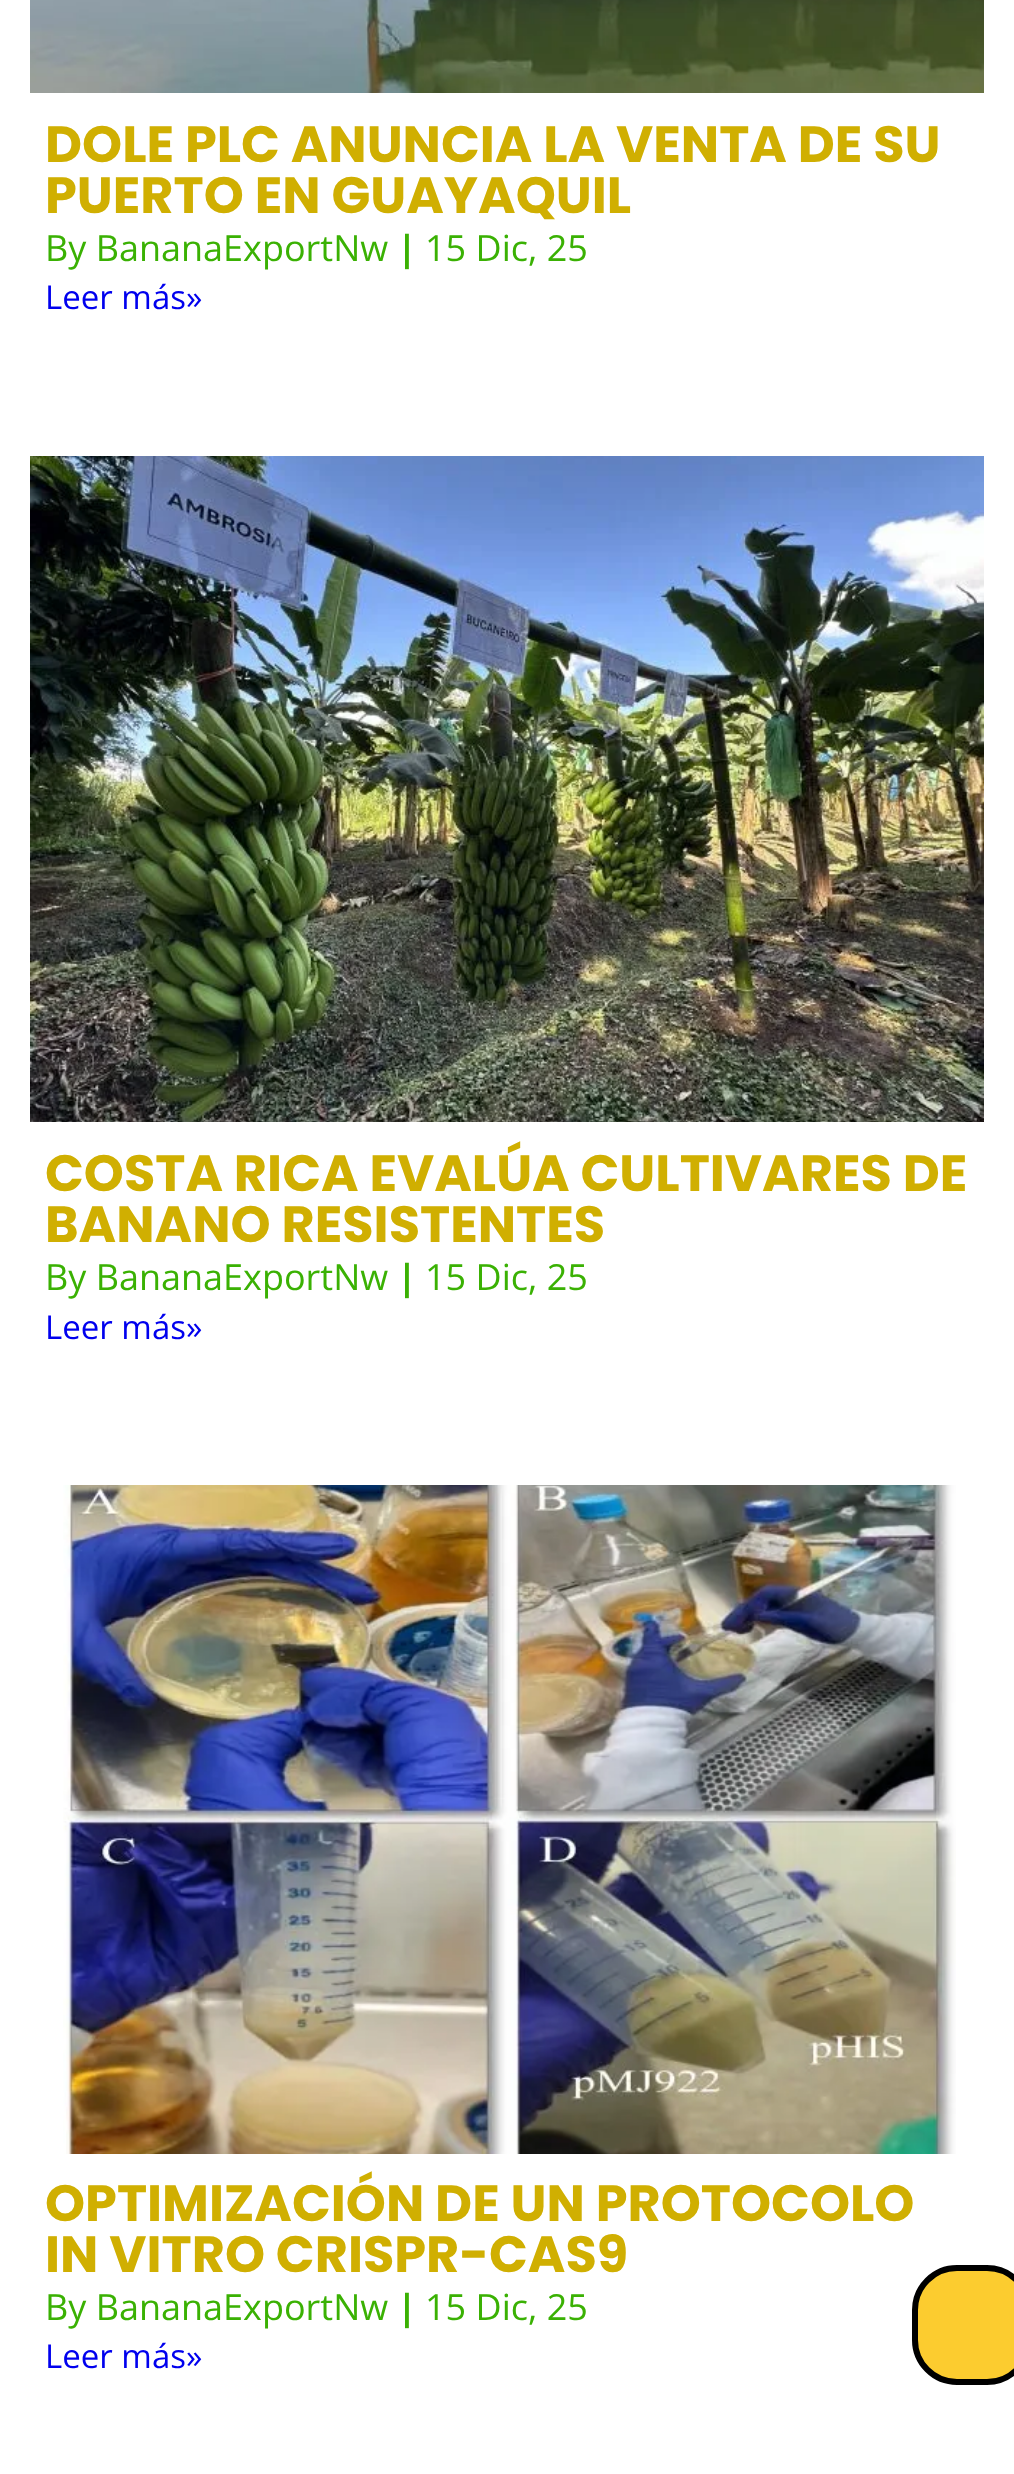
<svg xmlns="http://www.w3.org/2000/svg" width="1014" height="2474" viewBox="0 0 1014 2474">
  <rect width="100%" height="100%" fill="rgb(255,255,255)"/>
  <image x="30" y="0" width="954" height="93" href="pic1.png"/>
  <g font-family="Poppins" font-size="51" font-weight="bold" fill="rgb(208,175,1)">
    <text>
      <tspan x="45" y="162">DOLE PLC ANUNCIA LA VENTA DE SU</tspan>
      <tspan x="45" y="213">PUERTO EN GUAYAQUIL</tspan>
    </text>
  </g>
  <text x="45" y="261" font-family="Open Sans" font-size="36" fill="rgb(58,177,3)">By BananaExportNw</text>
  <text x="397" y="261" font-family="Open Sans" font-size="36" font-weight="bold" fill="rgb(58,177,3)">|</text>
  <text x="425" y="261" font-family="Open Sans" font-size="36" fill="rgb(58,177,3)">15 Dic, 25</text>
  <text x="45" y="309" font-family="Open Sans" font-size="33" fill="rgb(0,0,238)">Leer más»</text>
  <image x="30" y="456" width="954" height="666" href="pic2.png"/>
  <g font-family="Poppins" font-size="51" font-weight="bold" fill="rgb(208,175,1)">
    <text>
      <tspan x="45" y="1191">COSTA RICA EVALÚA CULTIVARES DE</tspan>
      <tspan x="45" y="1242">BANANO RESISTENTES</tspan>
    </text>
  </g>
  <text x="45" y="1290" font-family="Open Sans" font-size="36" fill="rgb(58,177,3)">By BananaExportNw</text>
  <text x="397" y="1290" font-family="Open Sans" font-size="36" font-weight="bold" fill="rgb(58,177,3)">|</text>
  <text x="425" y="1290" font-family="Open Sans" font-size="36" fill="rgb(58,177,3)">15 Dic, 25</text>
  <text x="45" y="1339" font-family="Open Sans" font-size="33" fill="rgb(0,0,238)">Leer más»</text>
  <image x="63" y="1485" width="893" height="669" href="pic3.png"/>
  <g font-family="Poppins" font-size="51" font-weight="bold" fill="rgb(208,175,1)">
    <text>
      <tspan x="45" y="2221">OPTIMIZACIÓN DE UN PROTOCOLO</tspan>
      <tspan x="45" y="2272">IN VITRO CRISPR-CAS9</tspan>
    </text>
  </g>
  <text x="45" y="2320" font-family="Open Sans" font-size="36" fill="rgb(58,177,3)">By BananaExportNw</text>
  <text x="397" y="2320" font-family="Open Sans" font-size="36" font-weight="bold" fill="rgb(58,177,3)">|</text>
  <text x="425" y="2320" font-family="Open Sans" font-size="36" fill="rgb(58,177,3)">15 Dic, 25</text>
  <text x="45" y="2368" font-family="Open Sans" font-size="33" fill="rgb(0,0,238)">Leer más»</text>
  <rect x="915" y="2268" width="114" height="114" rx="42" fill="rgb(252,204,47)" stroke="rgb(0,0,0)" stroke-width="6"/>
</svg>
